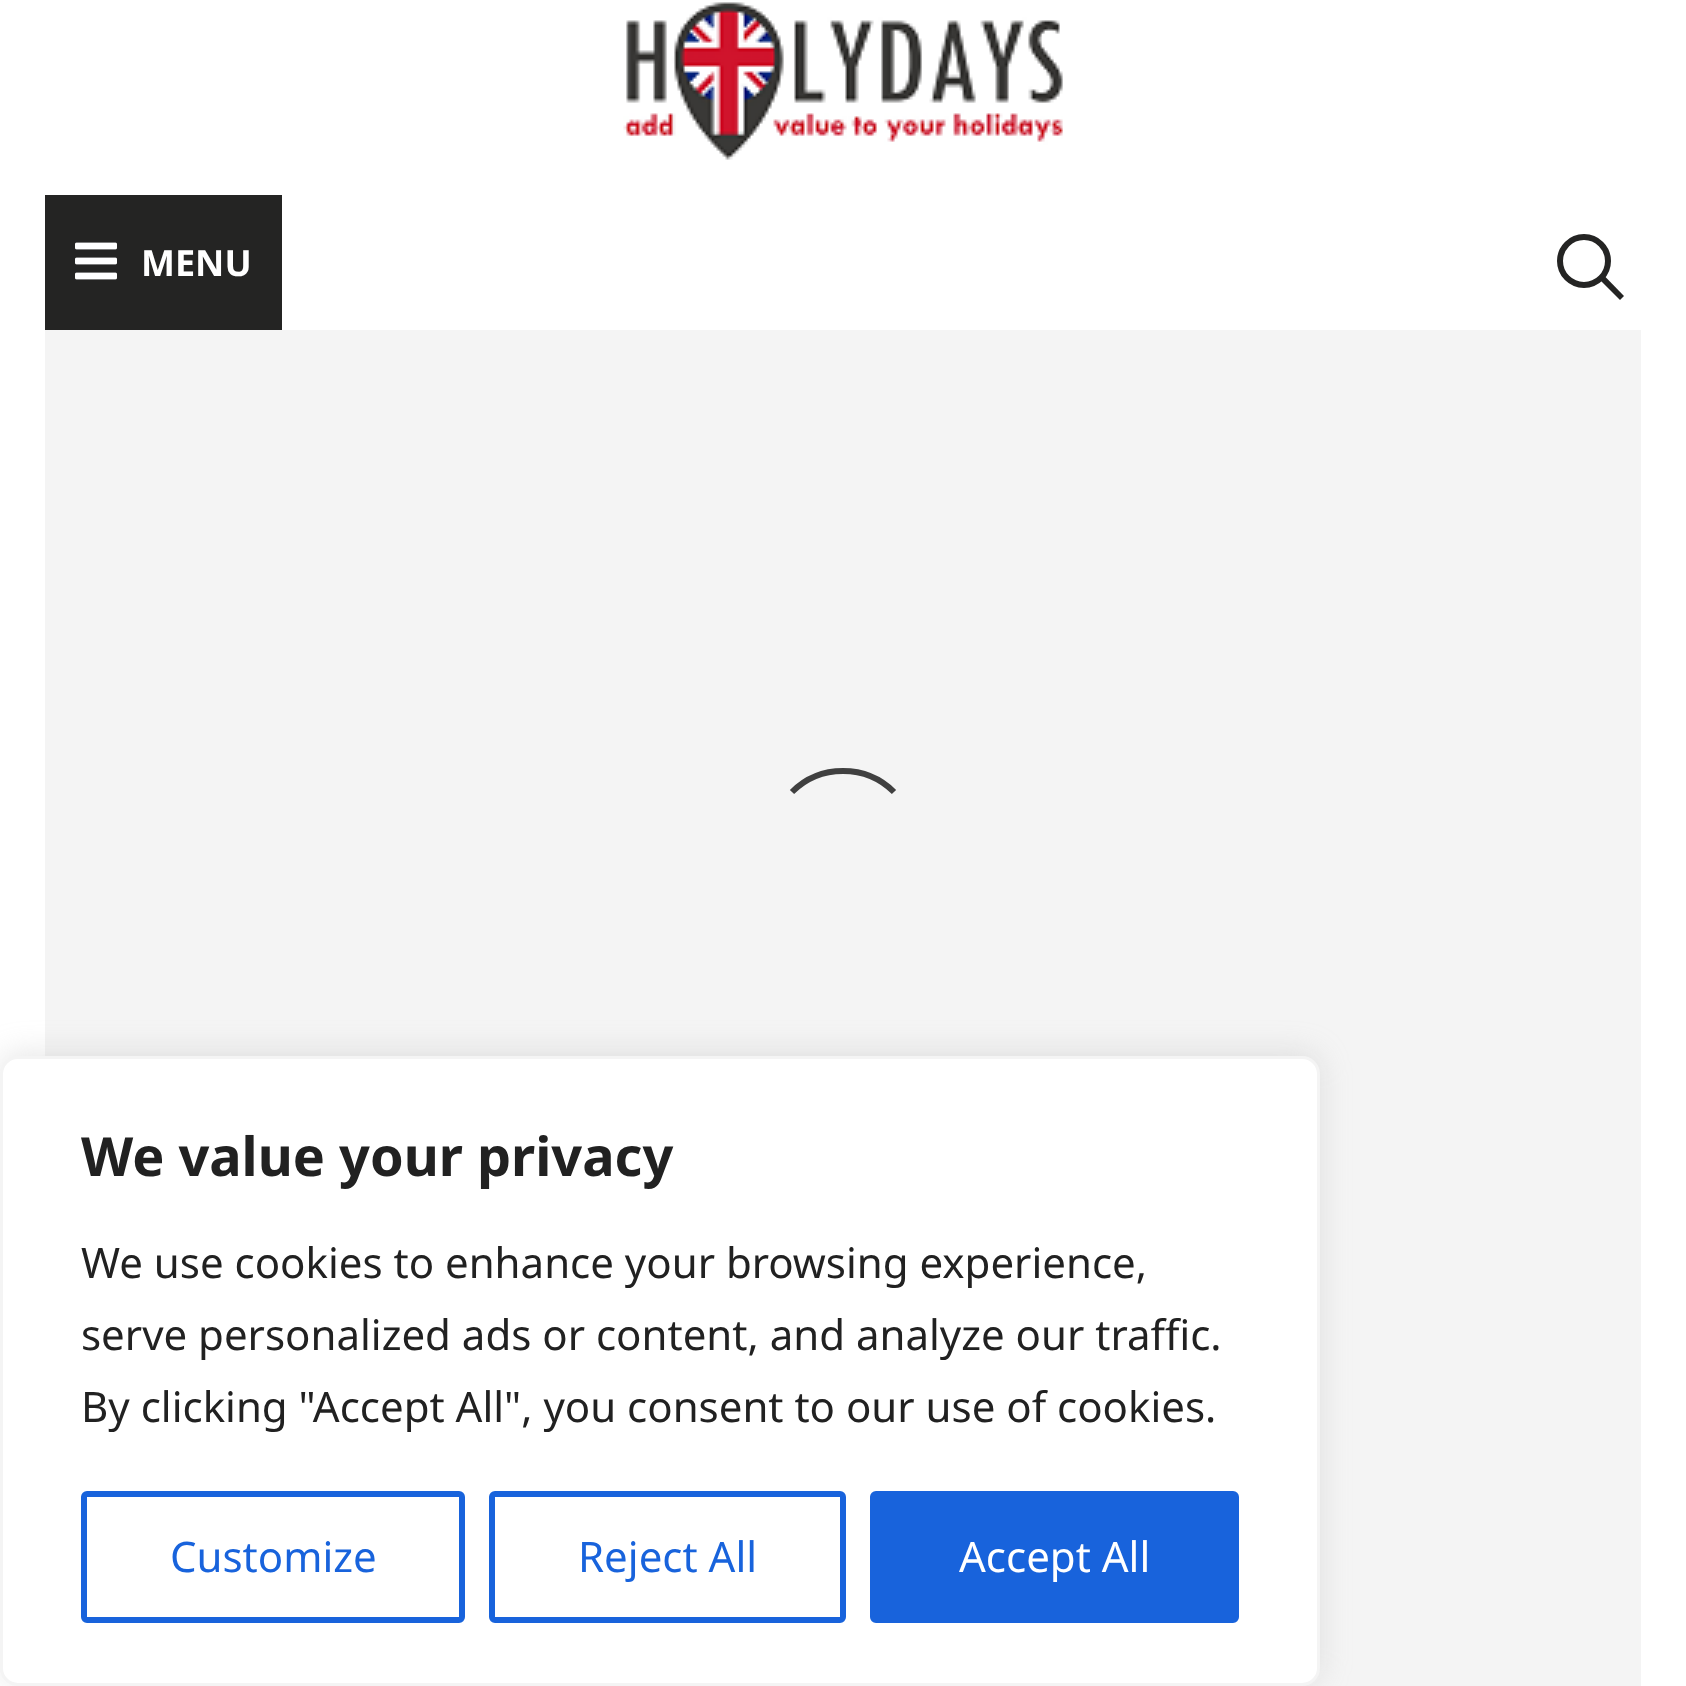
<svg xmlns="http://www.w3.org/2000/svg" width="1686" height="1686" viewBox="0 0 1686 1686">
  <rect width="100%" height="100%" fill="rgb(244,244,244)"/>
  <rect x="0" y="0" width="1686" height="330" fill="rgb(255,255,255)"/>
  <image x="623" y="2" width="440" height="158" href="pic1.png"/>
  <rect x="45" y="195" width="237" height="135" fill="rgb(36,36,35)"/>
  <image x="75" y="242" width="42" height="38" href="pic2.png"/>
  <text x="141" y="276" font-family="Noto Sans" font-size="36" font-weight="bold" fill="rgb(255,255,255)">MENU</text>
  <circle cx="1584" cy="261" r="24" fill="none" stroke="rgb(36,36,35)" stroke-width="6"/>
  <path d="M1605 276.5L1624 296L1620 300L1601 281Z" fill="rgb(36,36,35)"/>
  <rect x="0" y="330" width="45" height="1356" fill="rgb(255,255,255)"/>
  <path d="M792 792C820 764 866 764 894 792" fill="none" stroke="rgb(64,64,64)" stroke-width="6"/>
  <rect x="1641" y="330" width="45" height="1356" fill="rgb(255,255,255)"/>
  <rect x="0" y="1053" width="1320" height="630" rx="18" fill="rgba(172,171,171,0.3)" filter="blur(15px)"/>
  <rect x="1.5" y="1057.5" width="1317" height="627" rx="16.5" fill="rgb(255,255,255)" stroke="rgb(244,244,244)" stroke-width="3"/>
  <text x="81" y="1176" font-family="Noto Sans" font-size="54" font-weight="bold" fill="rgb(33,33,33)">We value your privacy</text>
  <g font-family="Noto Sans" font-size="42" fill="rgb(33,33,33)">
    <text>
      <tspan x="81" y="1278">We use cookies to enhance your browsing experience,</tspan>
      <tspan x="81" y="1350">serve personalized ads or content, and analyze our traffic.</tspan>
      <tspan x="81" y="1422">By clicking "Accept All", you consent to our use of cookies.</tspan>
    </text>
  </g>
  <rect x="84" y="1494" width="378" height="126" rx="3" fill="none" stroke="rgb(24,99,220)" stroke-width="6"/>
  <text x="170" y="1572" font-family="Noto Sans" font-size="42" fill="rgb(24,99,220)">Customize</text>
  <rect x="492" y="1494" width="351" height="126" rx="3" fill="none" stroke="rgb(24,99,220)" stroke-width="6"/>
  <text x="578" y="1572" font-family="Noto Sans" font-size="42" fill="rgb(24,99,220)">Reject All</text>
  <rect x="873" y="1494" width="363" height="126" rx="3" fill="rgb(24,99,220)" stroke="rgb(24,99,220)" stroke-width="6"/>
  <text x="959" y="1572" font-family="Noto Sans" font-size="42" fill="rgb(255,255,255)">Accept All</text>
</svg>
